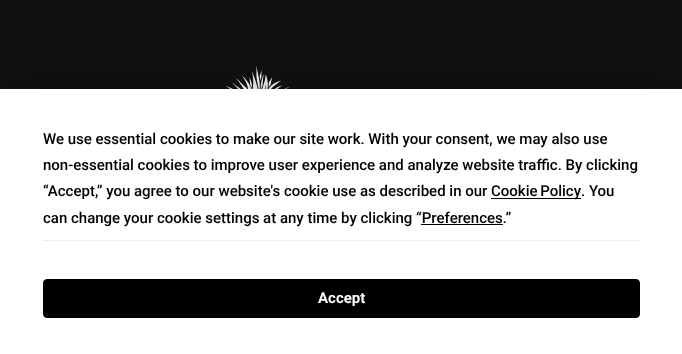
<svg xmlns="http://www.w3.org/2000/svg" width="682" height="354" viewBox="0 0 682 354">
  <rect width="100%" height="100%" fill="rgb(17,17,17)"/>
  <image x="226" y="66" width="64" height="23" href="pic1.png"/>
  <rect x="0" y="89" width="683" height="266" fill="rgba(0,0,0,0.25)" filter="blur(22px)"/>
  <rect x="0" y="89" width="682" height="265" fill="rgb(255,255,255)"/>
  <g font-family="Roboto" font-size="15" font-weight="500" fill="rgb(0,0,0)">
    <text>
      <tspan x="43" y="144">We use essential cookies to make our site work. With your consent, we may also use</tspan>
      <tspan x="43" y="170">non-essential cookies to improve user experience and analyze website traffic. By clicking</tspan>
      <tspan x="43" y="196">“Accept,” you agree to our website's cookie use as described in our</tspan>
    </text>
  </g>
  <rect x="491" y="198" width="90" height="1" fill="rgb(0,0,0)"/>
  <g font-family="Roboto" font-size="15" font-weight="500" fill="rgb(0,0,0)">
    <text x="491" y="196" word-spacing="-1">Cookie Policy</text>
    <text x="581" y="196">. You</text>
    <text x="43" y="223">can change your cookie settings at any time by clicking “Preferences.”</text>
  </g>
  <rect x="421" y="224" width="82" height="1" fill="rgb(0,0,0)"/>
  <rect x="43" y="240" width="597" height="1" fill="rgb(237,237,239)"/>
  <rect x="43.5" y="279.5" width="596" height="38" rx="3.5" fill="rgb(0,0,0)" stroke="rgb(0,0,0)"/>
  <text x="318" y="303" font-family="Roboto" font-size="15" font-weight="bold" fill="rgb(255,255,255)">Accept</text>
</svg>
